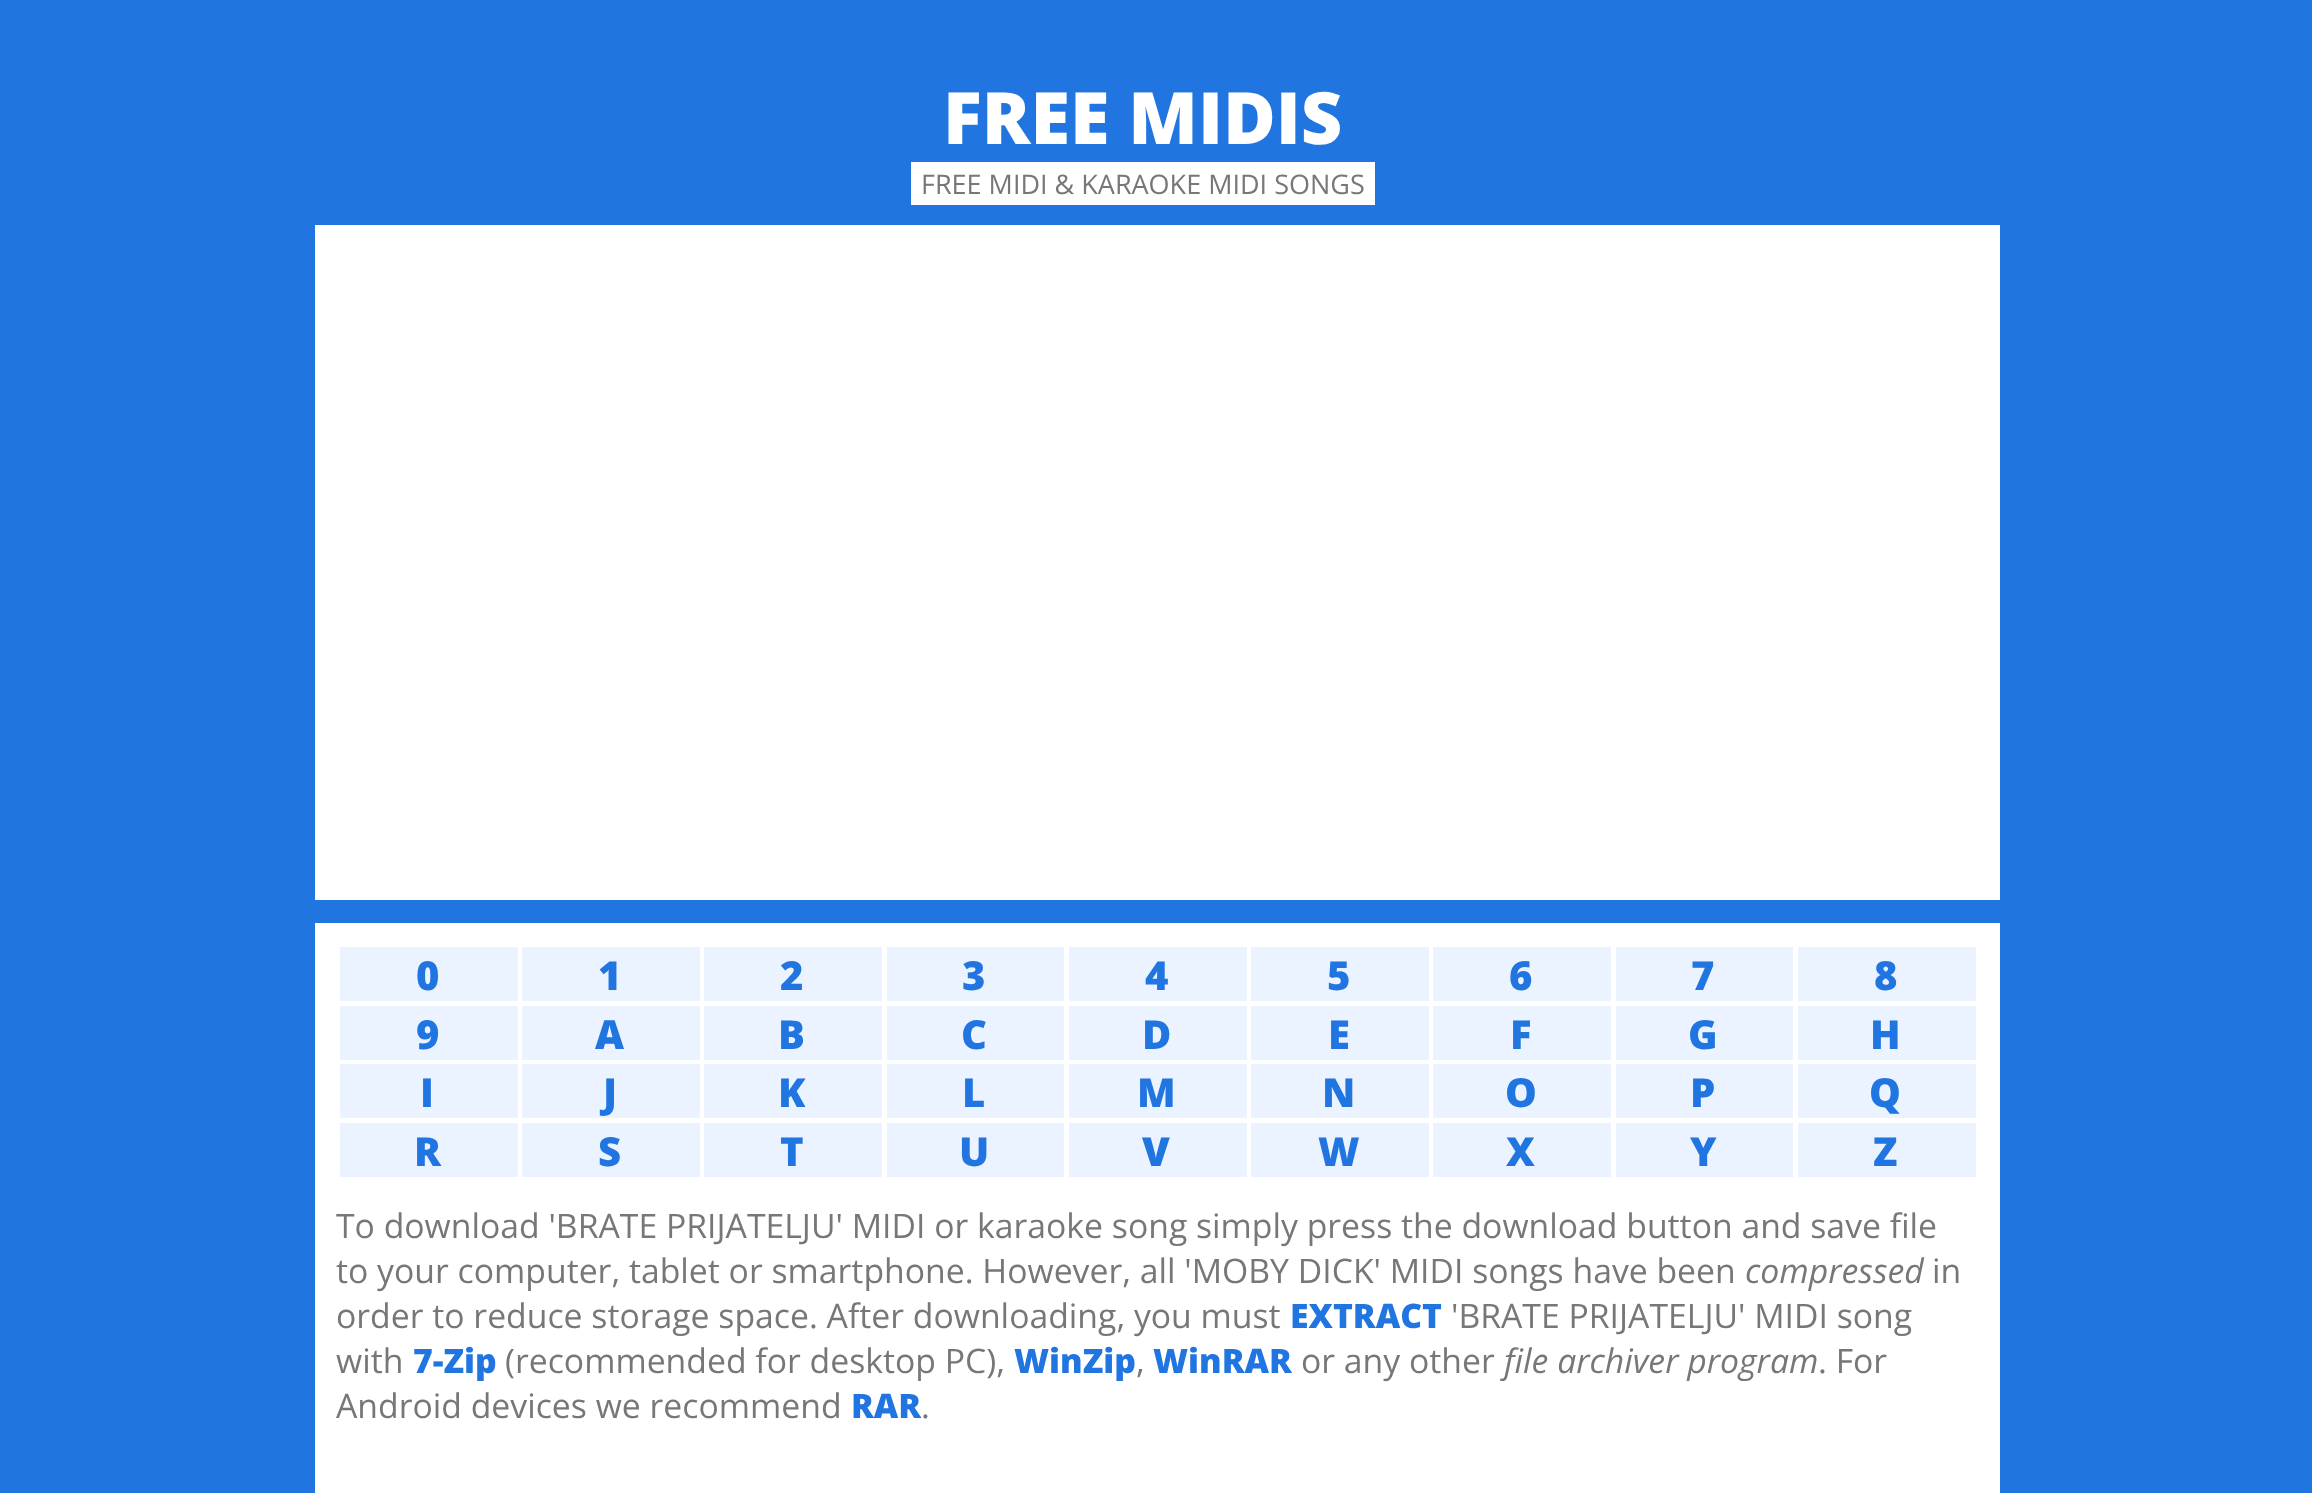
<svg xmlns="http://www.w3.org/2000/svg" width="2312" height="1493" viewBox="0 0 2312 1493">
  <rect width="100%" height="100%" fill="rgb(32,117,224)"/>
  <text x="943" y="144" font-family="Open Sans" font-size="72" font-weight="800" fill="rgb(255,255,255)">FREE MIDIS</text>
  <rect x="911" y="162" width="464" height="43" fill="rgb(255,255,255)"/>
  <text x="921" y="194" font-family="Open Sans" font-size="27" fill="rgb(119,119,119)">FREE MIDI &amp; KARAOKE MIDI SONGS</text>
  <rect x="315" y="225" width="1685" height="675" fill="rgb(255,255,255)"/>
  <rect x="315" y="923" width="1685" height="570" fill="rgb(255,255,255)"/>
  <rect x="340" y="947" width="178" height="54" fill="rgb(234,243,255)"/>
  <text x="416" y="990" font-family="Open Sans" font-size="40" font-weight="800" fill="rgb(32,117,224)">0</text>
  <rect x="522" y="947" width="178" height="54" fill="rgb(234,243,255)"/>
  <text x="598" y="990" font-family="Open Sans" font-size="40" font-weight="800" fill="rgb(32,117,224)">1</text>
  <rect x="704" y="947" width="178" height="54" fill="rgb(234,243,255)"/>
  <text x="780" y="990" font-family="Open Sans" font-size="40" font-weight="800" fill="rgb(32,117,224)">2</text>
  <rect x="887" y="947" width="177" height="54" fill="rgb(234,243,255)"/>
  <text x="962" y="990" font-family="Open Sans" font-size="40" font-weight="800" fill="rgb(32,117,224)">3</text>
  <rect x="1069" y="947" width="178" height="54" fill="rgb(234,243,255)"/>
  <text x="1145" y="990" font-family="Open Sans" font-size="40" font-weight="800" fill="rgb(32,117,224)">4</text>
  <rect x="1251" y="947" width="178" height="54" fill="rgb(234,243,255)"/>
  <text x="1327" y="990" font-family="Open Sans" font-size="40" font-weight="800" fill="rgb(32,117,224)">5</text>
  <rect x="1433" y="947" width="178" height="54" fill="rgb(234,243,255)"/>
  <text x="1509" y="990" font-family="Open Sans" font-size="40" font-weight="800" fill="rgb(32,117,224)">6</text>
  <rect x="1616" y="947" width="177" height="54" fill="rgb(234,243,255)"/>
  <text x="1691" y="990" font-family="Open Sans" font-size="40" font-weight="800" fill="rgb(32,117,224)">7</text>
  <rect x="1798" y="947" width="178" height="54" fill="rgb(234,243,255)"/>
  <text x="1874" y="990" font-family="Open Sans" font-size="40" font-weight="800" fill="rgb(32,117,224)">8</text>
  <rect x="340" y="1006" width="178" height="54" fill="rgb(234,243,255)"/>
  <text x="416" y="1049" font-family="Open Sans" font-size="40" font-weight="800" fill="rgb(32,117,224)">9</text>
  <rect x="522" y="1006" width="178" height="54" fill="rgb(234,243,255)"/>
  <text x="595" y="1049" font-family="Open Sans" font-size="40" font-weight="800" fill="rgb(32,117,224)">A</text>
  <rect x="704" y="1006" width="178" height="54" fill="rgb(234,243,255)"/>
  <text x="778" y="1049" font-family="Open Sans" font-size="40" font-weight="800" fill="rgb(32,117,224)">B</text>
  <rect x="887" y="1006" width="177" height="54" fill="rgb(234,243,255)"/>
  <text x="961" y="1049" font-family="Open Sans" font-size="40" font-weight="800" fill="rgb(32,117,224)">C</text>
  <rect x="1069" y="1006" width="178" height="54" fill="rgb(234,243,255)"/>
  <text x="1142" y="1049" font-family="Open Sans" font-size="40" font-weight="800" fill="rgb(32,117,224)">D</text>
  <rect x="1251" y="1006" width="178" height="54" fill="rgb(234,243,255)"/>
  <text x="1328" y="1049" font-family="Open Sans" font-size="40" font-weight="800" fill="rgb(32,117,224)">E</text>
  <rect x="1433" y="1006" width="178" height="54" fill="rgb(234,243,255)"/>
  <text x="1510" y="1049" font-family="Open Sans" font-size="40" font-weight="800" fill="rgb(32,117,224)">F</text>
  <rect x="1616" y="1006" width="177" height="54" fill="rgb(234,243,255)"/>
  <text x="1688" y="1049" font-family="Open Sans" font-size="40" font-weight="800" fill="rgb(32,117,224)">G</text>
  <rect x="1798" y="1006" width="178" height="54" fill="rgb(234,243,255)"/>
  <text x="1870" y="1049" font-family="Open Sans" font-size="40" font-weight="800" fill="rgb(32,117,224)">H</text>
  <rect x="340" y="1064" width="178" height="54" fill="rgb(234,243,255)"/>
  <text x="420" y="1107" font-family="Open Sans" font-size="40" font-weight="800" fill="rgb(32,117,224)">I</text>
  <rect x="522" y="1064" width="178" height="54" fill="rgb(234,243,255)"/>
  <text x="603" y="1107" font-family="Open Sans" font-size="40" font-weight="800" fill="rgb(32,117,224)">J</text>
  <rect x="704" y="1064" width="178" height="54" fill="rgb(234,243,255)"/>
  <text x="778" y="1107" font-family="Open Sans" font-size="40" font-weight="800" fill="rgb(32,117,224)">K</text>
  <rect x="887" y="1064" width="177" height="54" fill="rgb(234,243,255)"/>
  <text x="962" y="1107" font-family="Open Sans" font-size="40" font-weight="800" fill="rgb(32,117,224)">L</text>
  <rect x="1069" y="1064" width="178" height="54" fill="rgb(234,243,255)"/>
  <text x="1137" y="1107" font-family="Open Sans" font-size="40" font-weight="800" fill="rgb(32,117,224)">M</text>
  <rect x="1251" y="1064" width="178" height="54" fill="rgb(234,243,255)"/>
  <text x="1322" y="1107" font-family="Open Sans" font-size="40" font-weight="800" fill="rgb(32,117,224)">N</text>
  <rect x="1433" y="1064" width="178" height="54" fill="rgb(234,243,255)"/>
  <text x="1505" y="1107" font-family="Open Sans" font-size="40" font-weight="800" fill="rgb(32,117,224)">O</text>
  <rect x="1616" y="1064" width="177" height="54" fill="rgb(234,243,255)"/>
  <text x="1690" y="1107" font-family="Open Sans" font-size="40" font-weight="800" fill="rgb(32,117,224)">P</text>
  <rect x="1798" y="1064" width="178" height="54" fill="rgb(234,243,255)"/>
  <text x="1869" y="1107" font-family="Open Sans" font-size="40" font-weight="800" fill="rgb(32,117,224)">Q</text>
  <rect x="340" y="1123" width="178" height="54" fill="rgb(234,243,255)"/>
  <text x="414" y="1166" font-family="Open Sans" font-size="40" font-weight="800" fill="rgb(32,117,224)">R</text>
  <rect x="522" y="1123" width="178" height="54" fill="rgb(234,243,255)"/>
  <text x="598" y="1166" font-family="Open Sans" font-size="40" font-weight="800" fill="rgb(32,117,224)">S</text>
  <rect x="704" y="1123" width="178" height="54" fill="rgb(234,243,255)"/>
  <text x="780" y="1166" font-family="Open Sans" font-size="40" font-weight="800" fill="rgb(32,117,224)">T</text>
  <rect x="887" y="1123" width="177" height="54" fill="rgb(234,243,255)"/>
  <text x="959" y="1166" font-family="Open Sans" font-size="40" font-weight="800" fill="rgb(32,117,224)">U</text>
  <rect x="1069" y="1123" width="178" height="54" fill="rgb(234,243,255)"/>
  <text x="1142" y="1166" font-family="Open Sans" font-size="40" font-weight="800" fill="rgb(32,117,224)">V</text>
  <rect x="1251" y="1123" width="178" height="54" fill="rgb(234,243,255)"/>
  <text x="1318" y="1166" font-family="Open Sans" font-size="40" font-weight="800" fill="rgb(32,117,224)">W</text>
  <rect x="1433" y="1123" width="178" height="54" fill="rgb(234,243,255)"/>
  <text x="1506" y="1166" font-family="Open Sans" font-size="40" font-weight="800" fill="rgb(32,117,224)">X</text>
  <rect x="1616" y="1123" width="177" height="54" fill="rgb(234,243,255)"/>
  <text x="1690" y="1166" font-family="Open Sans" font-size="40" font-weight="800" fill="rgb(32,117,224)">Y</text>
  <rect x="1798" y="1123" width="178" height="54" fill="rgb(234,243,255)"/>
  <text x="1873" y="1166" font-family="Open Sans" font-size="40" font-weight="800" fill="rgb(32,117,224)">Z</text>
  <g font-family="Open Sans" font-size="33.75" fill="rgb(119,119,119)">
    <text>
      <tspan x="336" y="1238">To download 'BRATE PRIJATELJU' MIDI or karaoke song simply press the download button and save file</tspan>
      <tspan x="336" y="1283">to your computer, tablet or smartphone. However, all 'MOBY DICK' MIDI songs have been</tspan>
    </text>
  </g>
  <text x="1745" y="1283" font-family="Open Sans" font-size="33.75" font-style="italic" fill="rgb(119,119,119)">compressed</text>
  <g font-family="Open Sans" font-size="33.75" fill="rgb(119,119,119)">
    <text x="1932" y="1283">in</text>
    <text x="336" y="1328">order to reduce storage space. After downloading, you must</text>
  </g>
  <text x="1290" y="1328" font-family="Open Sans" font-size="33.75" font-weight="800" fill="rgb(32,117,224)">EXTRACT</text>
  <g font-family="Open Sans" font-size="33.75" fill="rgb(119,119,119)">
    <text x="1451" y="1328">'BRATE PRIJATELJU' MIDI song</text>
    <text x="336" y="1373">with</text>
  </g>
  <text x="413" y="1373" font-family="Open Sans" font-size="33.75" font-weight="800" fill="rgb(32,117,224)">7-Zip</text>
  <text x="505" y="1373" font-family="Open Sans" font-size="33.75" fill="rgb(119,119,119)">(recommended for desktop PC),</text>
  <text x="1014" y="1373" font-family="Open Sans" font-size="33.75" font-weight="800" fill="rgb(32,117,224)">WinZip</text>
  <text x="1136" y="1373" font-family="Open Sans" font-size="33.75" fill="rgb(119,119,119)">,</text>
  <text x="1153" y="1373" font-family="Open Sans" font-size="33.75" font-weight="800" fill="rgb(32,117,224)">WinRAR</text>
  <text x="1301" y="1373" font-family="Open Sans" font-size="33.75" fill="rgb(119,119,119)">or any other</text>
  <text x="1504" y="1373" font-family="Open Sans" font-size="33.75" font-style="italic" fill="rgb(119,119,119)">file archiver program</text>
  <g font-family="Open Sans" font-size="33.75" fill="rgb(119,119,119)">
    <text x="1818" y="1373">. For</text>
    <text x="336" y="1418">Android devices we recommend</text>
  </g>
  <text x="851" y="1418" font-family="Open Sans" font-size="33.75" font-weight="800" fill="rgb(32,117,224)">RAR</text>
  <text x="921" y="1418" font-family="Open Sans" font-size="33.75" fill="rgb(119,119,119)">.</text>
</svg>
